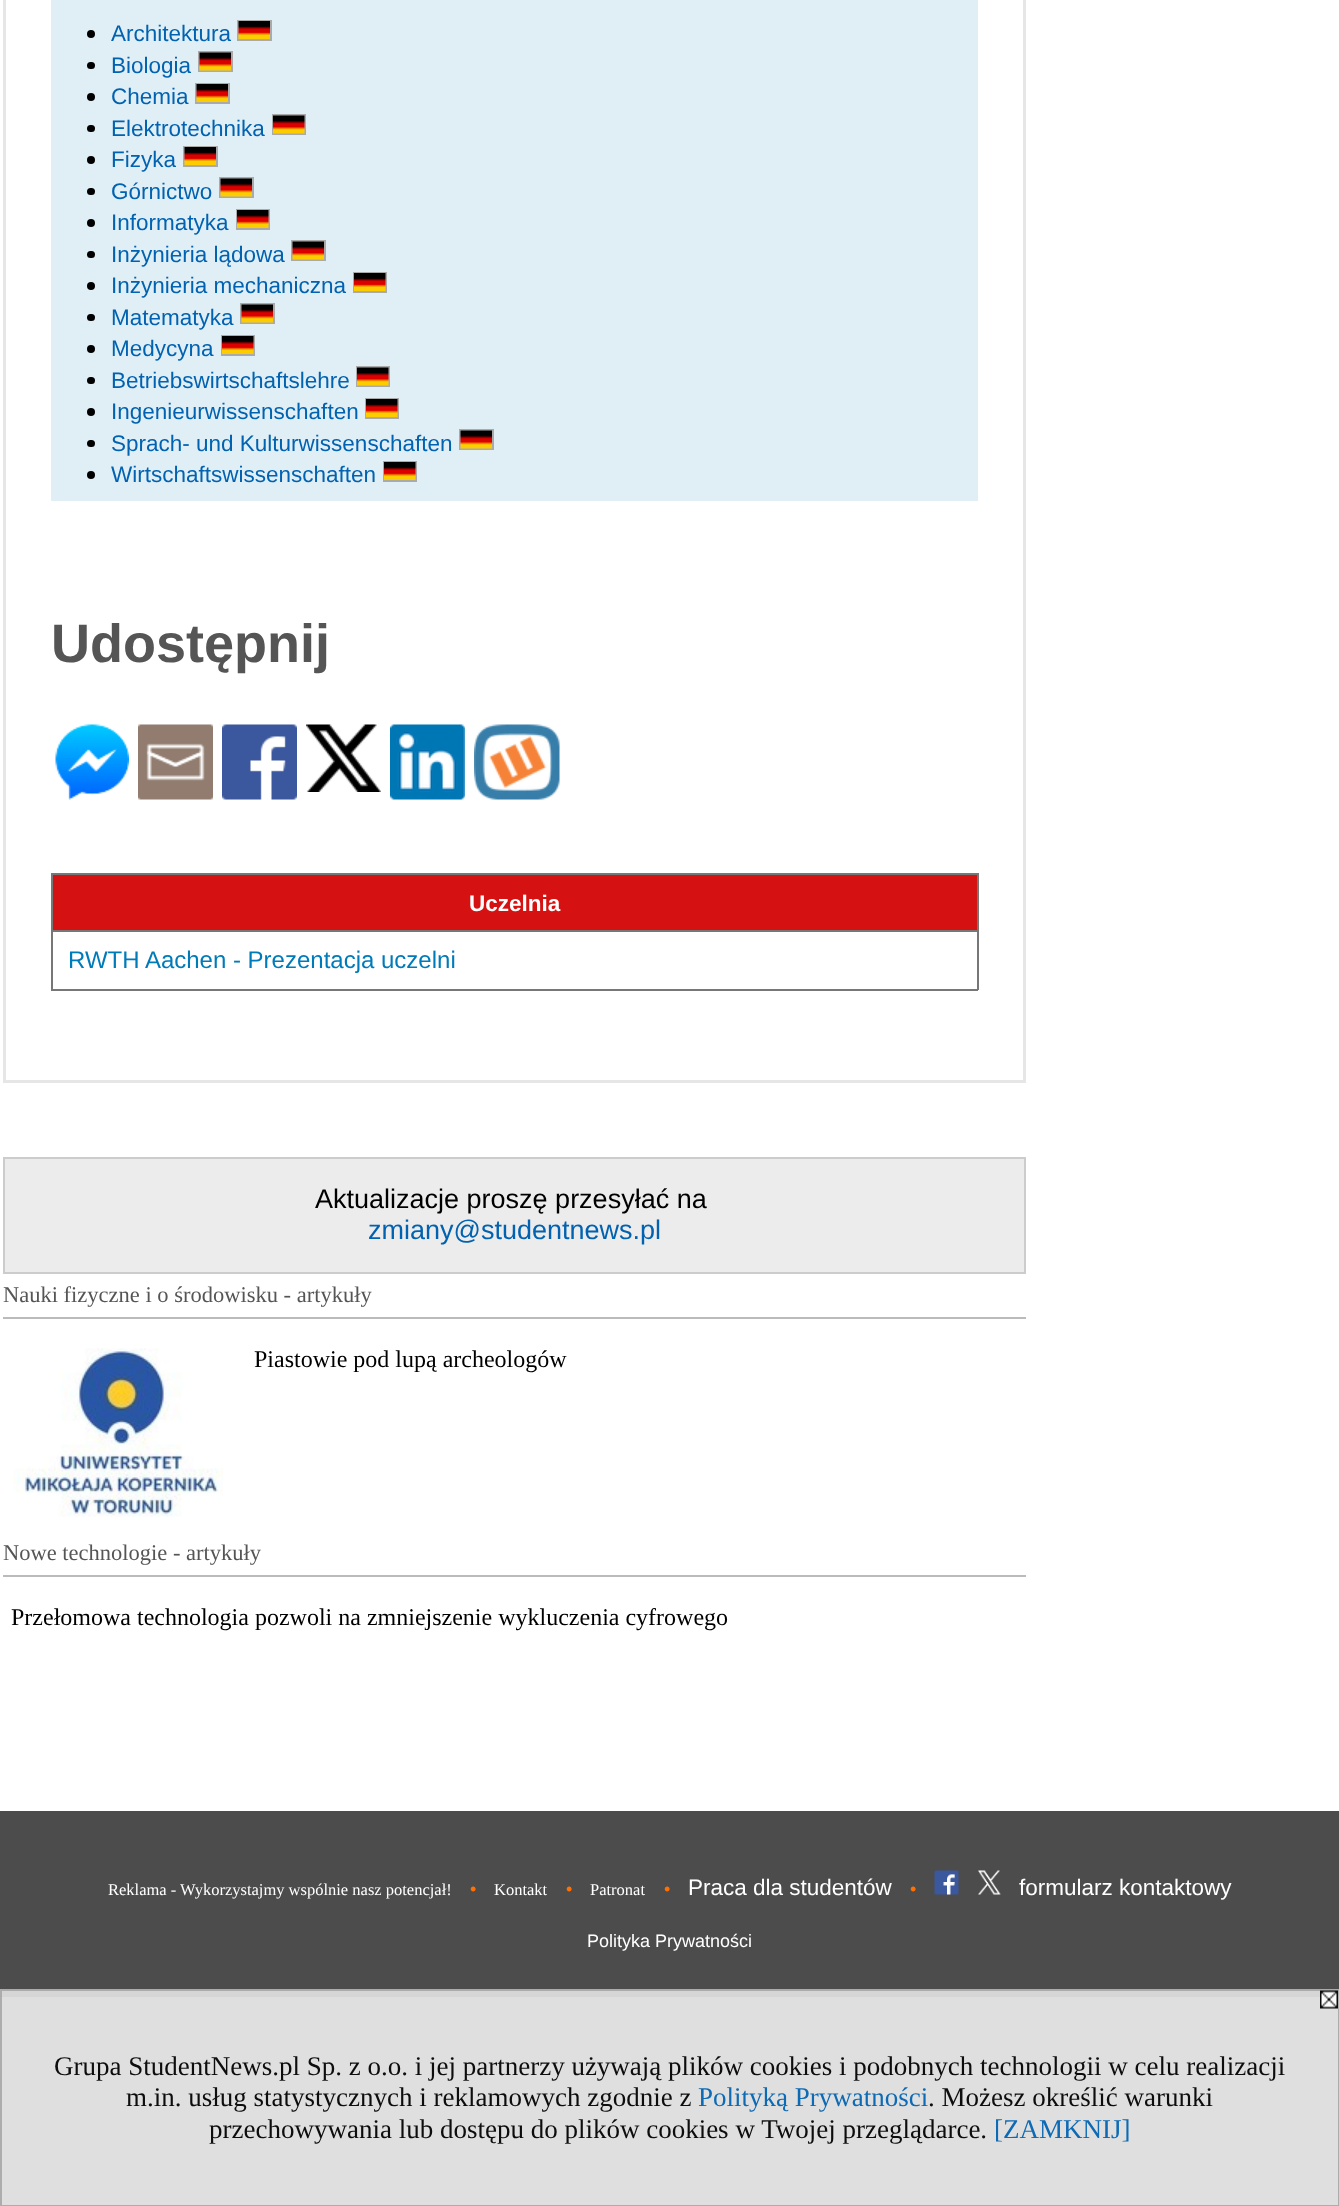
<svg xmlns="http://www.w3.org/2000/svg" width="1339" height="2206" viewBox="0 0 1339 2206">
  <rect width="100%" height="100%" fill="rgb(255,255,255)"/>
  <rect x="0" y="1997" width="1339" height="209" fill="rgb(223,223,223)"/>
  <rect x="4.5" y="-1.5" width="1020" height="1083" fill="none" stroke="rgb(230,230,230)" stroke-width="3"/>
  <rect x="51" y="0" width="927" height="501" fill="rgb(224,239,246)"/>
  <circle cx="91" cy="34" r="4" fill="rgb(0,0,0)"/>
  <text x="111" y="41" font-family="Liberation Sans" font-size="22.5" fill="rgb(0,98,176)">Architektura</text>
  <rect x="238" y="21" width="33" height="19" fill="none" stroke="rgb(170,170,170)" stroke-width="2"/>
  <image x="238" y="21" width="32" height="18" href="pic1.png"/>
  <rect x="87" y="62" width="8" height="7" rx="3.5" fill="rgb(0,0,0)"/>
  <text x="111" y="73" font-family="Liberation Sans" font-size="22.5" fill="rgb(0,98,176)">Biologia</text>
  <rect x="199" y="52" width="33" height="19" fill="none" stroke="rgb(170,170,170)" stroke-width="2"/>
  <image x="199" y="52" width="32" height="19" href="pic2.png"/>
  <circle cx="91" cy="97" r="4" fill="rgb(0,0,0)"/>
  <text x="111" y="104" font-family="Liberation Sans" font-size="22.5" fill="rgb(0,98,176)">Chemia</text>
  <rect x="196" y="84" width="33" height="19" fill="none" stroke="rgb(170,170,170)" stroke-width="2"/>
  <image x="196" y="84" width="32" height="18" href="pic1.png"/>
  <rect x="87" y="125" width="8" height="7" rx="3.5" fill="rgb(0,0,0)"/>
  <text x="111" y="136" font-family="Liberation Sans" font-size="22.5" fill="rgb(0,98,176)">Elektrotechnika</text>
  <rect x="273" y="115" width="32" height="19" fill="none" stroke="rgb(170,170,170)" stroke-width="2"/>
  <image x="273" y="115" width="32" height="19" href="pic3.png"/>
  <circle cx="91" cy="160" r="4" fill="rgb(0,0,0)"/>
  <text x="111" y="167" font-family="Liberation Sans" font-size="22.5" fill="rgb(0,98,176)">Fizyka</text>
  <rect x="184" y="147" width="33" height="19" fill="none" stroke="rgb(170,170,170)" stroke-width="2"/>
  <image x="184" y="147" width="32" height="18" href="pic1.png"/>
  <rect x="87" y="188" width="8" height="7" rx="3.5" fill="rgb(0,0,0)"/>
  <text x="111" y="199" font-family="Liberation Sans" font-size="22.5" fill="rgb(0,98,176)">Górnictwo</text>
  <rect x="220" y="178" width="33" height="19" fill="none" stroke="rgb(170,170,170)" stroke-width="2"/>
  <image x="220" y="178" width="32" height="19" href="pic2.png"/>
  <circle cx="91" cy="223" r="4" fill="rgb(0,0,0)"/>
  <text x="111" y="230" font-family="Liberation Sans" font-size="22.5" fill="rgb(0,98,176)">Informatyka</text>
  <rect x="237" y="210" width="32" height="19" fill="none" stroke="rgb(170,170,170)" stroke-width="2"/>
  <image x="237" y="210" width="32" height="18" href="pic4.png"/>
  <rect x="87" y="251" width="8" height="7" rx="3.5" fill="rgb(0,0,0)"/>
  <text x="111" y="262" font-family="Liberation Sans" font-size="22.5" fill="rgb(0,98,176)">Inżynieria lądowa</text>
  <rect x="292" y="241" width="33" height="19" fill="none" stroke="rgb(170,170,170)" stroke-width="2"/>
  <image x="292" y="241" width="32" height="19" href="pic2.png"/>
  <circle cx="91" cy="286" r="4" fill="rgb(0,0,0)"/>
  <text x="111" y="293" font-family="Liberation Sans" font-size="22.5" fill="rgb(0,98,176)">Inżynieria mechaniczna</text>
  <rect x="354" y="273" width="32" height="19" fill="none" stroke="rgb(170,170,170)" stroke-width="2"/>
  <image x="354" y="273" width="32" height="18" href="pic4.png"/>
  <rect x="87" y="314" width="8" height="7" rx="3.5" fill="rgb(0,0,0)"/>
  <text x="111" y="325" font-family="Liberation Sans" font-size="22.5" fill="rgb(0,98,176)">Matematyka</text>
  <rect x="241" y="304" width="33" height="19" fill="none" stroke="rgb(170,170,170)" stroke-width="2"/>
  <image x="241" y="304" width="32" height="19" href="pic2.png"/>
  <circle cx="91" cy="349" r="4" fill="rgb(0,0,0)"/>
  <text x="111" y="356" font-family="Liberation Sans" font-size="22.5" fill="rgb(0,98,176)">Medycyna</text>
  <rect x="222" y="336" width="32" height="19" fill="none" stroke="rgb(170,170,170)" stroke-width="2"/>
  <image x="222" y="336" width="32" height="18" href="pic4.png"/>
  <rect x="87" y="377" width="8" height="7" rx="3.5" fill="rgb(0,0,0)"/>
  <text x="111" y="388" font-family="Liberation Sans" font-size="22.5" fill="rgb(0,98,176)">Betriebswirtschaftslehre</text>
  <rect x="357" y="367" width="32" height="19" fill="none" stroke="rgb(170,170,170)" stroke-width="2"/>
  <image x="357" y="367" width="32" height="19" href="pic3.png"/>
  <circle cx="91" cy="412" r="4" fill="rgb(0,0,0)"/>
  <text x="111" y="419" font-family="Liberation Sans" font-size="22.5" fill="rgb(0,98,176)">Ingenieurwissenschaften</text>
  <rect x="366" y="399" width="32" height="19" fill="none" stroke="rgb(170,170,170)" stroke-width="2"/>
  <image x="366" y="399" width="32" height="18" href="pic4.png"/>
  <rect x="87" y="440" width="8" height="7" rx="3.5" fill="rgb(0,0,0)"/>
  <text x="111" y="451" font-family="Liberation Sans" font-size="22.5" fill="rgb(0,98,176)">Sprach- und Kulturwissenschaften</text>
  <rect x="460" y="430" width="33" height="19" fill="none" stroke="rgb(170,170,170)" stroke-width="2"/>
  <image x="460" y="430" width="32" height="19" href="pic2.png"/>
  <circle cx="91" cy="475" r="4" fill="rgb(0,0,0)"/>
  <text x="111" y="482" font-family="Liberation Sans" font-size="22.5" fill="rgb(0,98,176)">Wirtschaftswissenschaften</text>
  <rect x="384" y="462" width="32" height="19" fill="none" stroke="rgb(170,170,170)" stroke-width="2"/>
  <image x="384" y="462" width="32" height="18" href="pic4.png"/>
  <text x="51" y="662" font-family="Liberation Sans" font-size="54" font-weight="bold" fill="rgb(85,85,85)">Udostępnij</text>
  <image x="55" y="724" width="74" height="76" href="pic5.png"/>
  <image x="138" y="724" width="75" height="76" href="pic6.png"/>
  <image x="222" y="724" width="75" height="76" href="pic7.png"/>
  <image x="306" y="724" width="75" height="68" href="pic8.png"/>
  <image x="390" y="724" width="75" height="76" href="pic9.png"/>
  <image x="474" y="724" width="86" height="76" href="pic10.png"/>
  <rect x="53" y="875" width="924" height="55" fill="rgb(213,17,17)"/>
  <rect x="51" y="873" width="927" height="2" fill="rgb(119,119,119)"/>
  <rect x="51" y="930" width="927" height="2" fill="rgb(119,119,119)"/>
  <rect x="977" y="930" width="2" height="60" fill="rgb(119,119,119)"/>
  <rect x="977" y="873" width="2" height="59" fill="rgb(119,119,119)"/>
  <rect x="51" y="989" width="927" height="2" fill="rgb(119,119,119)"/>
  <rect x="51" y="930" width="2" height="60" fill="rgb(119,119,119)"/>
  <rect x="51" y="873" width="2" height="59" fill="rgb(119,119,119)"/>
  <text x="469" y="911" font-family="Liberation Sans" font-size="22.5" font-weight="bold" fill="rgb(255,255,255)">Uczelnia</text>
  <text x="68" y="968" font-family="Liberation Sans" font-size="24" fill="rgb(0,123,186)">RWTH Aachen - Prezentacja uczelni</text>
  <rect x="4" y="1158" width="1021" height="115" fill="rgb(236,236,236)" stroke="rgb(204,204,204)" stroke-width="2"/>
  <text x="315" y="1208" font-family="Liberation Sans" font-size="27" fill="rgb(0,0,0)">Aktualizacje proszę przesyłać na</text>
  <text x="368" y="1239" font-family="Liberation Sans" font-size="27" fill="rgb(0,98,176)">zmiany@studentnews.pl</text>
  <rect x="3" y="1317" width="1023" height="2" fill="rgb(187,187,187)"/>
  <text x="3" y="1302" font-family="Liberation Serif" font-size="22.5" fill="rgb(85,85,85)">Nauki fizyczne i o środowisku - artykuły</text>
  <image x="13" y="1348" width="210" height="169" href="pic11.png"/>
  <text x="254" y="1367" font-family="Liberation Serif" font-size="24" fill="rgb(0,0,0)">Piastowie pod lupą archeologów</text>
  <rect x="3" y="1575" width="1023" height="2" fill="rgb(187,187,187)"/>
  <text x="3" y="1560" font-family="Liberation Serif" font-size="22.5" fill="rgb(85,85,85)">Nowe technologie - artykuły</text>
  <text x="11" y="1625" font-family="Liberation Serif" font-size="24" fill="rgb(0,0,0)">Przełomowa technologia pozwoli na zmniejszenie wykluczenia cyfrowego</text>
  <rect x="0" y="1811" width="1339" height="178" fill="rgb(76,76,76)"/>
  <text x="108" y="1895" font-family="Liberation Serif" font-size="16.5" fill="rgb(255,255,255)">Reklama - Wykorzystajmy wspólnie nasz potencjał!</text>
  <text x="470" y="1895" font-family="Liberation Serif" font-size="18" font-weight="bold" fill="rgb(255,112,0)">•</text>
  <text x="494" y="1895" font-family="Liberation Serif" font-size="16.5" fill="rgb(255,255,255)">Kontakt</text>
  <text x="566" y="1895" font-family="Liberation Serif" font-size="18" font-weight="bold" fill="rgb(255,112,0)">•</text>
  <text x="590" y="1895" font-family="Liberation Serif" font-size="16.5" fill="rgb(255,255,255)">Patronat</text>
  <text x="664" y="1895" font-family="Liberation Serif" font-size="18" font-weight="bold" fill="rgb(255,112,0)">•</text>
  <text x="688" y="1895" font-family="Liberation Sans" font-size="22.5" fill="rgb(255,255,255)">Praca dla studentów</text>
  <text x="910" y="1895" font-family="Liberation Serif" font-size="18" font-weight="bold" fill="rgb(255,112,0)">•</text>
  <image x="934" y="1870" width="25" height="25" href="pic12.png"/>
  <image x="978" y="1870" width="23" height="25" href="pic13.png"/>
  <text x="1019" y="1895" font-family="Liberation Sans" font-size="22.5" fill="rgb(255,255,255)">formularz kontaktowy</text>
  <rect x="0" y="1989" width="1339" height="8" fill="rgb(214,214,214)"/>
  <text x="587" y="1947" font-family="Liberation Sans" font-size="18" fill="rgb(255,255,255)">Polityka Prywatności</text>
  <rect x="1" y="1990" width="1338" height="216" fill="none" stroke="rgba(170,170,170,0.95)" stroke-width="2"/>
  <image x="1320" y="1990" width="18" height="19" href="pic14.png"/>
  <g font-family="Liberation Serif" font-size="27" fill="rgb(13,13,13)">
    <text x="54" y="2075">Grupa StudentNews.pl Sp. z o.o. i jej partnerzy używają plików cookies i podobnych technologii w celu realizacji</text>
    <text x="126" y="2106">m.in. usług statystycznych i reklamowych zgodnie z</text>
  </g>
  <text x="698" y="2106" font-family="Liberation Serif" font-size="27" fill="rgb(13,106,180)">Polityką Prywatności</text>
  <g font-family="Liberation Serif" font-size="27" fill="rgb(13,13,13)">
    <text x="928" y="2106">. Możesz określić warunki</text>
    <text x="209" y="2138">przechowywania lub dostępu do plików cookies w Twojej przeglądarce.</text>
  </g>
  <text x="994" y="2138" font-family="Liberation Serif" font-size="27" fill="rgb(13,106,180)">[ZAMKNIJ]</text>
</svg>
